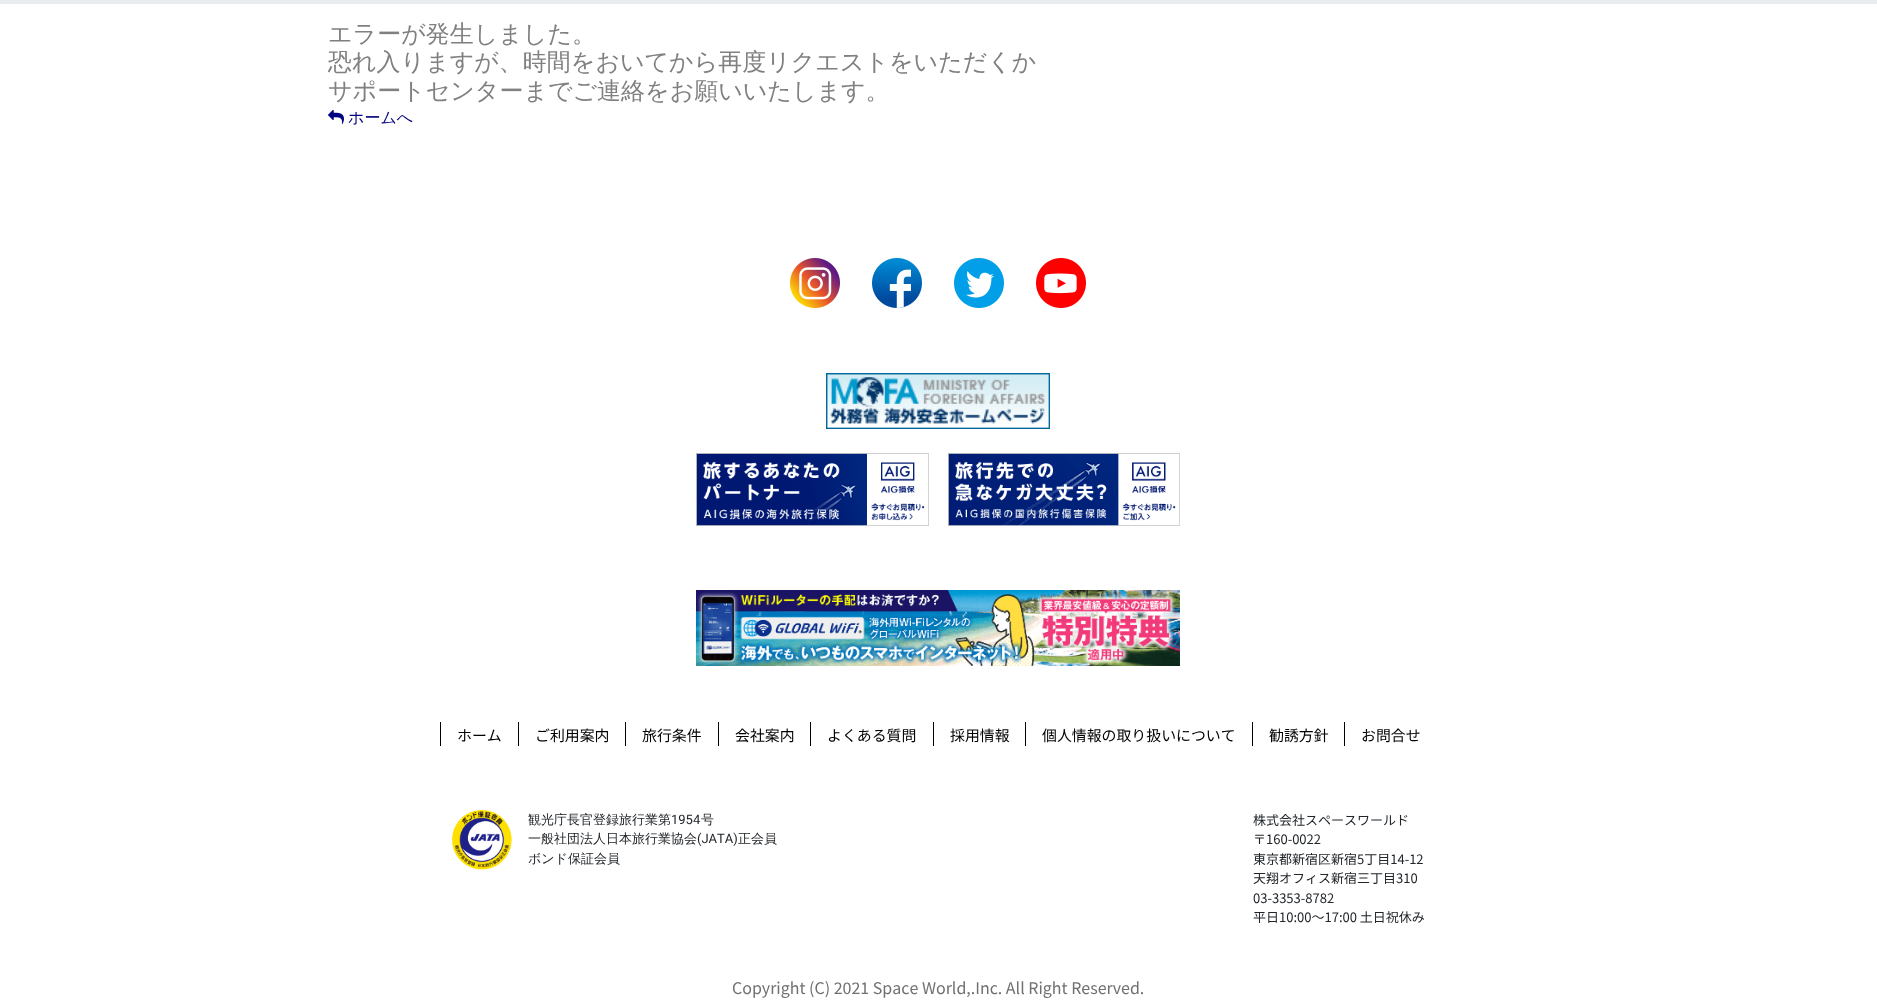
<svg xmlns="http://www.w3.org/2000/svg" width="1877" height="1004" viewBox="0 0 1877 1004">
  <style>*{font-kerning:none!important;font-variant-ligatures:none!important}</style>
  <rect width="100%" height="100%" fill="rgb(255,255,255)"/>
  <rect x="0" y="0" width="1877" height="4" fill="rgb(233,236,239)"/>
  <g font-family="WenQuanYi Zen Hei" font-size="24" font-weight="500" fill="rgb(128,128,128)">
    <text>
      <tspan x="328" y="42">エラーが発生しました。</tspan>
      <tspan x="328" y="70">恐れ入りますが、時間をおいてから再度リクエストをいただくか</tspan>
      <tspan x="328" y="99">サポートセンターまでご連絡をお願いいたします。</tspan>
    </text>
  </g>
  <image x="328" y="109" width="16" height="16" href="pic1.png"/>
  <text x="348" y="123" font-family="WenQuanYi Zen Hei" font-size="16" font-weight="500" fill="rgb(0,0,128)">ホームへ</text>
  <image x="790" y="258" width="50" height="50" href="pic2.png"/>
  <image x="872" y="258" width="50" height="50" href="pic3.png"/>
  <image x="954" y="258" width="50" height="50" href="pic4.png"/>
  <image x="1036" y="258" width="50" height="50" href="pic5.png"/>
  <image x="826" y="373" width="224" height="56" href="pic6.png"/>
  <image x="696" y="453" width="233" height="73" href="pic7.png"/>
  <image x="948" y="453" width="232" height="73" href="pic8.png"/>
  <image x="696" y="590" width="484" height="76" href="pic9.png"/>
  <rect x="440" y="722" width="1" height="24" fill="rgb(0,0,0)"/>
  <text x="457" y="741" font-family="Noto Sans JP" font-size="14.9" fill="rgb(0,0,0)">ホーム</text>
  <rect x="518" y="722" width="1" height="24" fill="rgb(0,0,0)"/>
  <text x="535" y="741" font-family="Noto Sans JP" font-size="14.9" fill="rgb(0,0,0)">ご利用案内</text>
  <rect x="625" y="722" width="1" height="24" fill="rgb(0,0,0)"/>
  <text x="642" y="741" font-family="Noto Sans JP" font-size="14.9" fill="rgb(0,0,0)">旅行条件</text>
  <rect x="718" y="722" width="1" height="24" fill="rgb(0,0,0)"/>
  <text x="735" y="741" font-family="Noto Sans JP" font-size="14.9" fill="rgb(0,0,0)">会社案内</text>
  <rect x="810" y="722" width="1" height="24" fill="rgb(0,0,0)"/>
  <text x="827" y="741" font-family="Noto Sans JP" font-size="14.9" fill="rgb(0,0,0)">よくある質問</text>
  <rect x="933" y="722" width="1" height="24" fill="rgb(0,0,0)"/>
  <text x="950" y="741" font-family="Noto Sans JP" font-size="14.9" fill="rgb(0,0,0)">採用情報</text>
  <rect x="1025" y="722" width="1" height="24" fill="rgb(0,0,0)"/>
  <text x="1042" y="741" font-family="Noto Sans JP" font-size="14.9" fill="rgb(0,0,0)">個人情報の取り扱いについて</text>
  <rect x="1252" y="722" width="1" height="24" fill="rgb(0,0,0)"/>
  <text x="1269" y="741" font-family="Noto Sans JP" font-size="14.9" fill="rgb(0,0,0)">勧誘方針</text>
  <rect x="1344" y="722" width="1" height="24" fill="rgb(0,0,0)"/>
  <text x="1361" y="741" font-family="Noto Sans JP" font-size="14.9" fill="rgb(0,0,0)">お問合せ</text>
  <image x="452" y="810" width="60" height="60" href="pic10.png"/>
  <text x="528" y="824" font-family="WenQuanYi Zen Hei" font-size="13" font-weight="500" fill="rgb(33,37,41)">観光庁長官登録旅行業第</text>
  <text x="671" y="824" font-family="Roboto" font-size="13" fill="rgb(33,37,41)">1954</text>
  <g font-family="WenQuanYi Zen Hei" font-size="13" font-weight="500" fill="rgb(33,37,41)">
    <text x="701" y="824">号</text>
    <text x="528" y="843">一般社団法人日本旅行業協会</text>
  </g>
  <text x="697" y="843" font-family="Roboto" font-size="13" fill="rgb(33,37,41)">(JATA)</text>
  <g font-family="WenQuanYi Zen Hei" font-size="13" font-weight="500" fill="rgb(33,37,41)">
    <text x="738" y="843">正会員</text>
    <text x="528" y="863">ボンド保証会員</text>
  </g>
  <g font-family="Noto Sans JP" font-size="13" fill="rgb(33,37,41)">
    <text>
      <tspan x="1253" y="825">株式会社スペースワールド</tspan>
      <tspan x="1253" y="844">〒160-0022</tspan>
      <tspan x="1253" y="864">東京都新宿区新宿5丁目14-12</tspan>
      <tspan x="1253" y="883">天翔オフィス新宿三丁目310</tspan>
      <tspan x="1253" y="903">03-3353-8782</tspan>
      <tspan x="1253" y="922">平日10:00～17:00 土日祝休み</tspan>
    </text>
  </g>
  <text x="732" y="994" font-family="Noto Sans JP" font-size="16" fill="rgb(113,112,113)">Copyright (C) 2021 Space World,.Inc. All Right Reserved.</text>
</svg>
